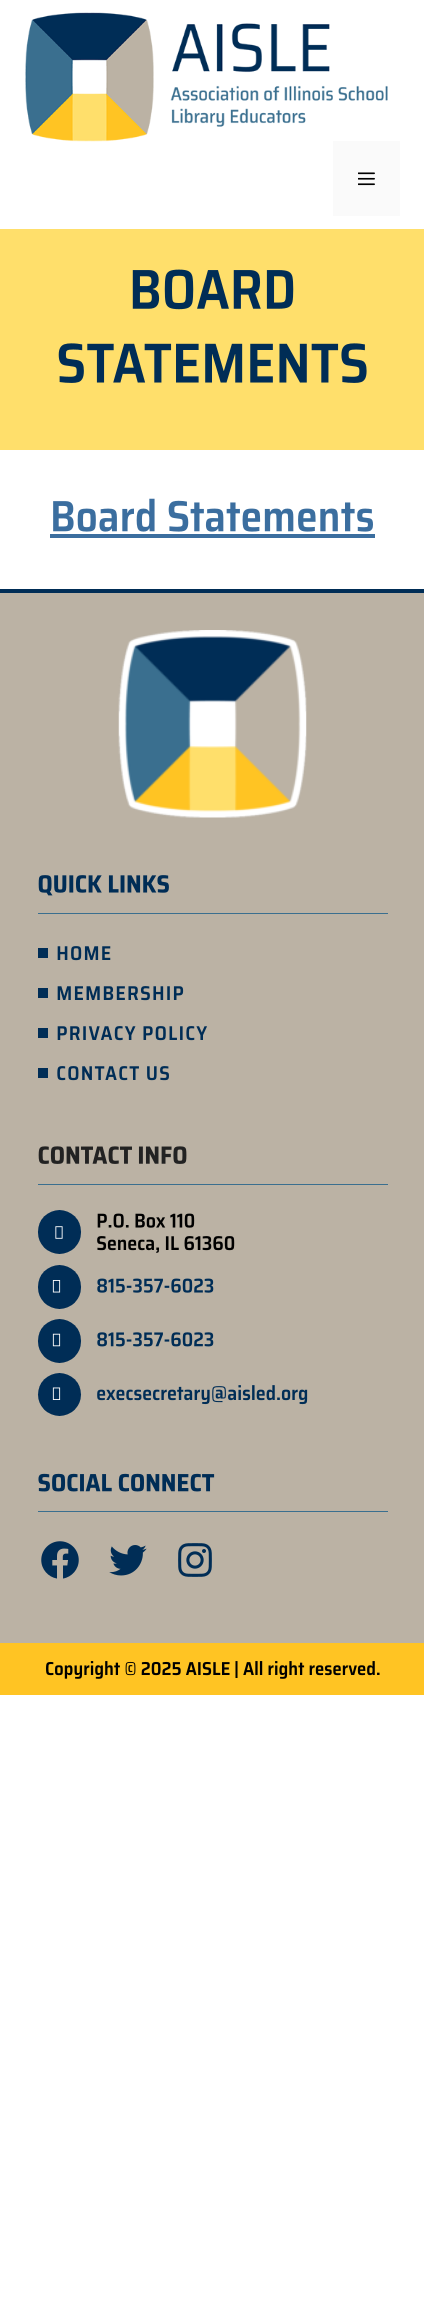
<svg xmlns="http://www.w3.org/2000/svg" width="424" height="2320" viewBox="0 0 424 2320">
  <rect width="100%" height="100%" fill="rgb(255,255,255)"/>
  <image x="25" y="12" width="363" height="130" href="pic1.png"/>
  <rect x="333" y="141" width="67" height="75" fill="rgb(250,250,250)"/>
  <image x="358" y="172" width="17" height="14" href="pic2.png"/>
  <rect x="0" y="229" width="424" height="221" fill="rgb(255,223,107)"/>
  <image x="132" y="269" width="162" height="41" href="pic3.png"/>
  <image x="58" y="343" width="309" height="40" href="pic4.png"/>
  <image x="53" y="498" width="320" height="34" href="pic5.png"/>
  <rect x="50" y="534" width="325" height="4" fill="rgb(59,110,159)"/>
  <rect x="0" y="593" width="424" height="1050" fill="rgb(187,178,164)"/>
  <rect x="0" y="589" width="424" height="4" fill="rgb(0,45,86)"/>
  <image x="118" y="630" width="189" height="188" href="pic6.png"/>
  <rect x="38" y="913" width="350" height="1" fill="rgb(58,111,143)"/>
  <image x="38" y="875" width="131" height="21" href="pic7.png"/>
  <rect x="38" y="948" width="10" height="10" fill="rgb(0,45,86)"/>
  <image x="57" y="946" width="54" height="15" href="pic8.png"/>
  <rect x="38" y="988" width="10" height="10" fill="rgb(0,45,86)"/>
  <image x="57" y="986" width="127" height="15" href="pic9.png"/>
  <rect x="38" y="1028" width="10" height="10" fill="rgb(0,45,86)"/>
  <image x="57" y="1026" width="150" height="15" href="pic10.png"/>
  <rect x="38" y="1068" width="10" height="10" fill="rgb(0,45,86)"/>
  <image x="57" y="1066" width="112" height="15" href="pic11.png"/>
  <rect x="38" y="1184" width="350" height="1" fill="rgb(58,111,143)"/>
  <image x="38" y="1146" width="149" height="18" href="pic12.png"/>
  <rect x="38" y="1210" width="43" height="44" rx="21.5" fill="rgb(0,45,86)"/>
  <image x="55" y="1226" width="8" height="13" href="pic13.png"/>
  <image x="97" y="1213" width="98" height="15" href="pic14.png"/>
  <image x="97" y="1236" width="138" height="17" href="pic15.png"/>
  <rect x="38" y="1265" width="43" height="44" rx="21.5" fill="rgb(0,45,86)"/>
  <image x="52" y="1280" width="9" height="13" href="pic16.png"/>
  <image x="97" y="1278" width="117" height="15" href="pic17.png"/>
  <rect x="38" y="1319" width="43" height="44" rx="21.5" fill="rgb(0,45,86)"/>
  <image x="52" y="1333" width="9" height="14" href="pic18.png"/>
  <image x="97" y="1332" width="117" height="15" href="pic19.png"/>
  <circle cx="59.5" cy="1394.5" r="21.5" fill="rgb(0,45,86)"/>
  <image x="52" y="1387" width="9" height="13" href="pic20.png"/>
  <image x="97" y="1385" width="211" height="20" href="pic21.png"/>
  <rect x="38" y="1511" width="350" height="1" fill="rgb(58,111,143)"/>
  <image x="38" y="1473" width="177" height="19" href="pic22.png"/>
  <image x="41" y="1541" width="38" height="38" href="pic23.png"/>
  <image x="109" y="1545" width="38" height="31" href="pic24.png"/>
  <image x="178" y="1543" width="34" height="34" href="pic25.png"/>
  <rect x="0" y="1643" width="424" height="52" fill="rgb(255,196,35)"/>
  <image x="46" y="1661" width="184" height="18" href="pic26.png"/>
  <image x="235" y="1661" width="145" height="18" href="pic27.png"/>
</svg>
